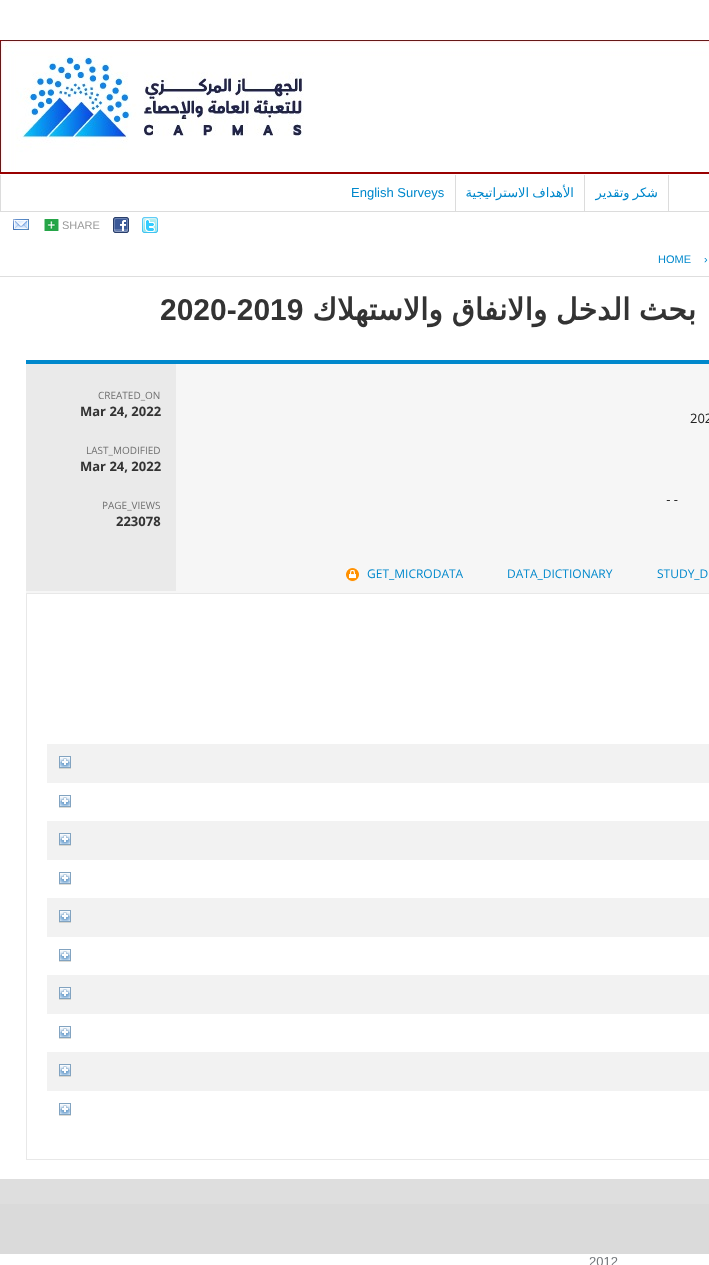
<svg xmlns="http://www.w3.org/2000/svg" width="709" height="1265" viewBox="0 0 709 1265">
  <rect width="100%" height="100%" fill="rgb(222,222,222)"/>
  <rect x="0" y="0" width="709" height="40" fill="rgb(255,255,255)"/>
  <rect x="0" y="174" width="709" height="102" fill="rgb(255,255,255)"/>
  <image x="0" y="40" width="709" height="132" href="pic1.png"/>
  <rect x="0" y="172" width="709" height="2" fill="rgb(153,0,0)"/>
  <rect x="0" y="211" width="709" height="1" fill="rgb(220,220,220)"/>
  <rect x="0" y="175" width="1" height="37" fill="rgb(220,220,220)"/>
  <rect x="455" y="175" width="1" height="36" fill="rgb(220,220,220)"/>
  <text x="351" y="197" font-family="Liberation Sans" font-size="13" fill="rgb(0,136,204)">English Surveys</text>
  <rect x="584" y="175" width="1" height="36" fill="rgb(220,220,220)"/>
  <text x="574" y="197" word-spacing="-1" font-family="DejaVu Sans" font-size="13" direction="rtl" fill="rgb(0,136,204)">الأهداف الاستراتيجية</text>
  <rect x="668" y="175" width="1" height="36" fill="rgb(220,220,220)"/>
  <text x="658" y="197" word-spacing="-1" font-family="DejaVu Sans" font-size="13" direction="rtl" fill="rgb(0,136,204)">شكر وتقدير</text>
  <image x="13" y="219" width="16" height="11" href="pic2.png"/>
  <image x="44" y="219" width="15" height="12" href="pic3.png"/>
  <text x="62" y="229" font-family="Liberation Sans" font-size="11" fill="rgb(153,153,153)">SHARE</text>
  <image x="113" y="217" width="16" height="16" href="pic4.png"/>
  <image x="142" y="217" width="16" height="16" href="pic5.png"/>
  <g font-family="Liberation Sans" font-size="11" fill="rgb(0,136,204)">
    <text x="658" y="263">HOME</text>
    <text x="704" y="263">›</text>
  </g>
  <rect x="0" y="277" width="709" height="902" fill="rgb(255,255,255)"/>
  <text x="160" y="320" font-family="Liberation Sans" font-size="30" font-weight="bold" fill="rgb(51,51,51)">2020-2019</text>
  <text x="696" y="320" word-spacing="-1" font-family="DejaVu Sans" font-size="30" font-weight="bold" direction="rtl" fill="rgb(51,51,51)">بحث الدخل والانفاق والاستهلاك</text>
  <rect x="176" y="364" width="533" height="227" fill="rgb(246,246,246)"/>
  <rect x="26" y="360" width="683" height="4" fill="rgb(0,136,204)"/>
  <rect x="26" y="364" width="150" height="227" fill="rgb(234,234,234)"/>
  <text x="98" y="399" font-family="Open Sans" font-size="10" fill="rgb(112,112,112)">CREATED_ON</text>
  <text x="80" y="416" font-family="Open Sans" font-size="13" font-weight="bold" fill="rgb(51,51,51)">Mar 24, 2022</text>
  <text x="86" y="454" font-family="Open Sans" font-size="10" fill="rgb(112,112,112)">LAST_MODIFIED</text>
  <text x="80" y="471" font-family="Open Sans" font-size="13" font-weight="bold" fill="rgb(51,51,51)">Mar 24, 2022</text>
  <text x="102" y="509" font-family="Open Sans" font-size="10" fill="rgb(112,112,112)">PAGE_VIEWS</text>
  <text x="116" y="526" font-family="Open Sans" font-size="13" font-weight="bold" fill="rgb(51,51,51)">223078</text>
  <text x="690" y="423" font-family="Open Sans" font-size="13" fill="rgb(34,34,34)">202</text>
  <text x="678" y="504" font-family="Open Sans" font-size="13" direction="rtl" fill="rgb(34,34,34)">- -</text>
  <rect x="26" y="591" width="683" height="2" fill="rgb(246,246,246)"/>
  <rect x="26" y="593" width="683" height="1" fill="rgb(232,232,232)"/>
  <image x="346" y="568" width="13" height="14" href="pic6.png"/>
  <g font-family="Open Sans" font-size="12" fill="rgb(0,136,204)">
    <text x="367" y="578">GET_MICRODATA</text>
    <text x="507" y="578">DATA_DICTIONARY</text>
    <text x="657" y="578">STUDY_D</text>
  </g>
  <rect x="26" y="1159" width="683" height="1" fill="rgb(232,232,232)"/>
  <rect x="26" y="594" width="1" height="566" fill="rgb(232,232,232)"/>
  <rect x="47" y="744" width="662" height="39" fill="rgb(242,242,242)"/>
  <image x="59" y="756" width="12" height="13" href="pic7.png"/>
  <image x="59" y="795" width="12" height="13" href="pic8.png"/>
  <rect x="47" y="821" width="662" height="39" fill="rgb(242,242,242)"/>
  <image x="59" y="833" width="12" height="13" href="pic7.png"/>
  <image x="59" y="872" width="12" height="13" href="pic8.png"/>
  <rect x="47" y="898" width="662" height="39" fill="rgb(242,242,242)"/>
  <image x="59" y="910" width="12" height="13" href="pic7.png"/>
  <image x="59" y="949" width="12" height="13" href="pic8.png"/>
  <rect x="47" y="975" width="662" height="39" fill="rgb(242,242,242)"/>
  <image x="59" y="987" width="12" height="13" href="pic7.png"/>
  <image x="59" y="1026" width="12" height="13" href="pic8.png"/>
  <rect x="47" y="1052" width="662" height="39" fill="rgb(242,242,242)"/>
  <image x="59" y="1064" width="12" height="13" href="pic7.png"/>
  <image x="59" y="1103" width="12" height="13" href="pic8.png"/>
  <rect x="0" y="1204" width="709" height="50" fill="rgb(218,218,218)"/>
  <rect x="0" y="1254" width="709" height="11" fill="rgb(255,255,255)"/>
  <text x="589" y="1266" font-family="Liberation Sans" font-size="13" fill="rgb(114,118,122)">2012</text>
</svg>
